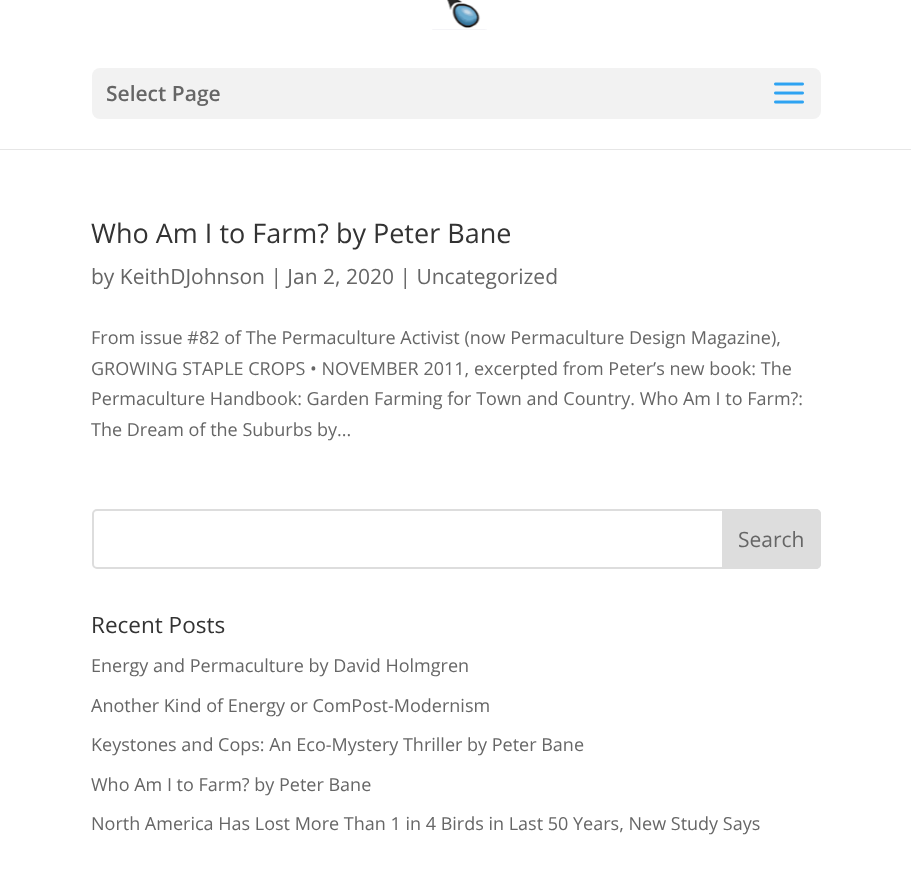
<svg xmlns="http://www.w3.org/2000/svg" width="911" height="887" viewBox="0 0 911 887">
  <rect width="100%" height="100%" fill="rgb(255,255,255)"/>
  <rect x="0" y="149" width="911" height="1" fill="rgb(230,230,230)"/>
  <image x="432" y="0" width="55" height="30" href="pic1.png"/>
  <rect x="92" y="68" width="729" height="51" rx="8" fill="rgb(242,242,242)"/>
  <text x="106" y="101" font-family="Open Sans" font-size="21" font-weight="600" fill="rgb(102,102,102)">Select Page</text>
  <image x="774" y="82" width="30" height="22" href="pic2.png"/>
  <text x="91" y="243" font-family="Open Sans" font-size="27" fill="rgb(51,51,51)">Who Am I to Farm? by Peter Bane</text>
  <text x="91" y="284" font-family="Open Sans" font-size="21" fill="rgb(102,102,102)">by KeithDJohnson | Jan 2, 2020 | Uncategorized</text>
  <g font-family="Open Sans" font-size="18" fill="rgb(102,102,102)">
    <text>
      <tspan x="91" y="344">From issue #82 of The Permaculture Activist (now Permaculture Design Magazine),</tspan>
      <tspan x="91" y="375">GROWING STAPLE CROPS • NOVEMBER 2011, excerpted from Peter’s new book: The</tspan>
      <tspan x="91" y="405">Permaculture Handbook: Garden Farming for Town and Country. Who Am I to Farm?:</tspan>
      <tspan x="91" y="436">The Dream of the Suburbs by...</tspan>
    </text>
  </g>
  <rect x="93" y="510" width="727" height="58" rx="4" fill="none" stroke="rgb(221,221,221)" stroke-width="2"/>
  <path d="M723 510H816C818 510 820 512 820 514V564C820 566 818 568 816 568H723Z" fill="rgb(221,221,221)" stroke="rgb(221,221,221)" stroke-width="2"/>
  <text x="738" y="547" font-family="Open Sans" font-size="21" fill="rgb(102,102,102)">Search</text>
  <text x="91" y="633" font-family="Open Sans" font-size="22.5" fill="rgb(51,51,51)">Recent Posts</text>
  <g font-family="Open Sans" font-size="18" fill="rgb(102,102,102)">
    <text x="91" y="672">Energy and Permaculture by David Holmgren</text>
    <text x="91" y="712">Another Kind of Energy or ComPost-Modernism</text>
    <text x="91" y="751">Keystones and Cops: An Eco-Mystery Thriller by Peter Bane</text>
    <text x="91" y="791">Who Am I to Farm? by Peter Bane</text>
    <text x="91" y="830">North America Has Lost More Than 1 in 4 Birds in Last 50 Years, New Study Says</text>
  </g>
</svg>
